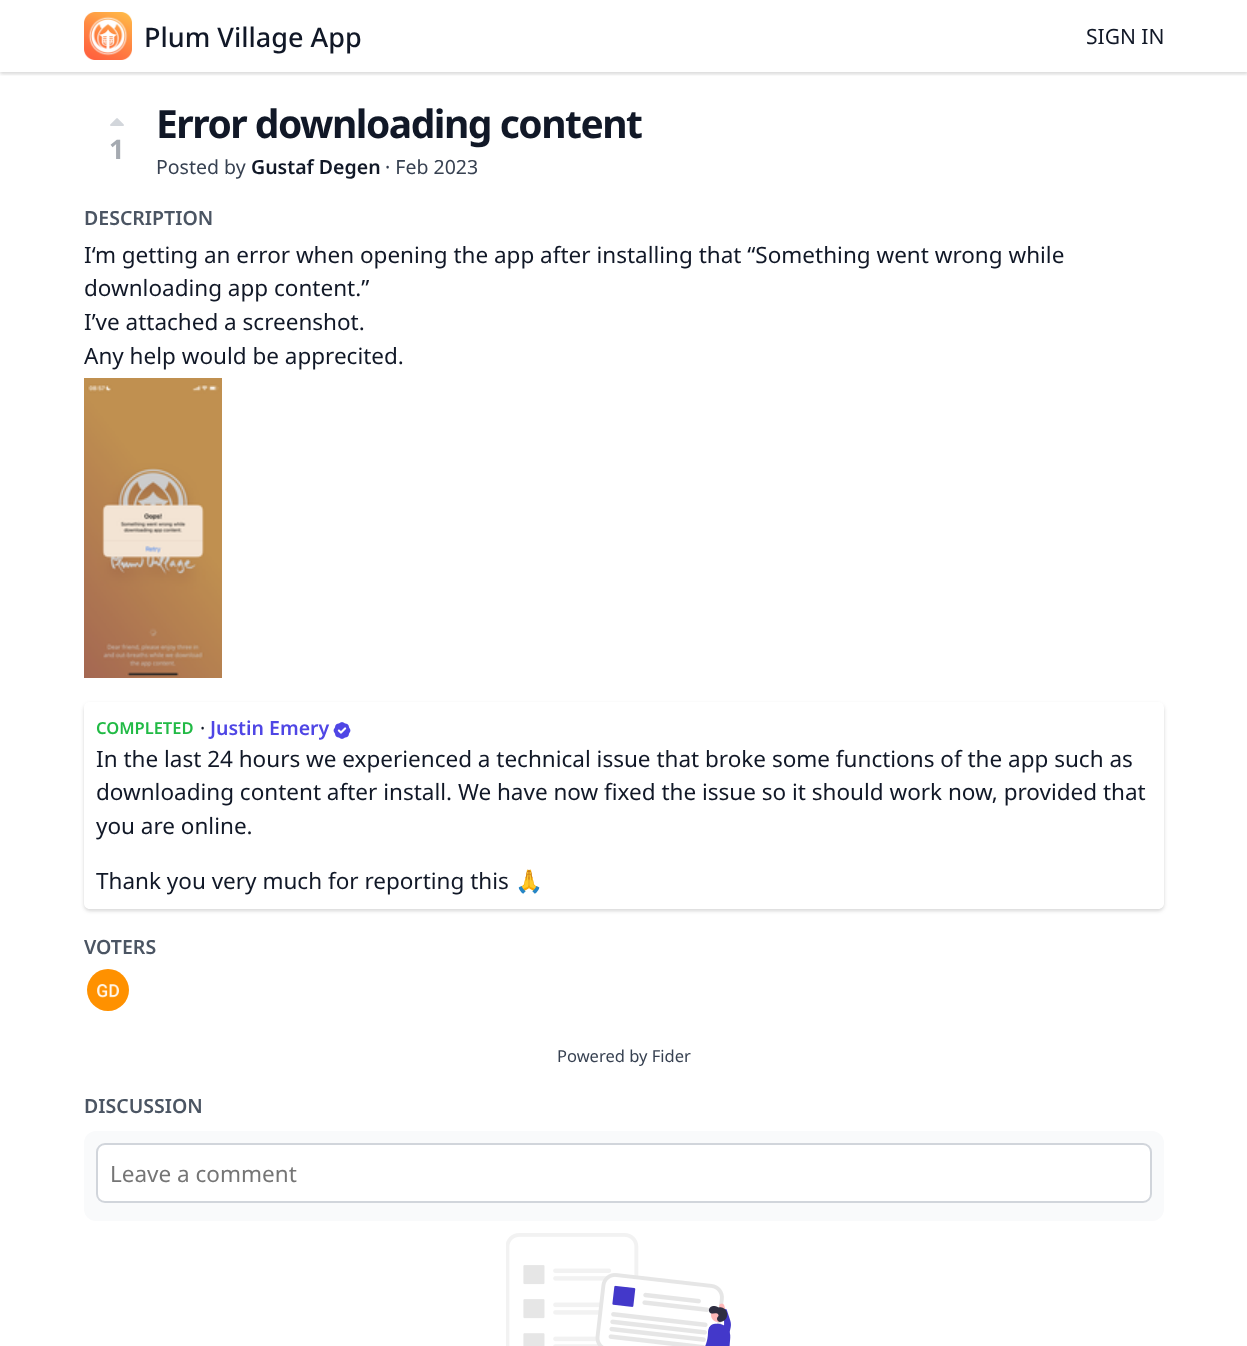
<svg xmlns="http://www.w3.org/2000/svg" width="1247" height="1346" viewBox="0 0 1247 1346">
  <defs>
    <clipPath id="clip1"><rect x="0" y="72" width="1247" height="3"/></clipPath>
    <clipPath id="clip2"><rect x="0" y="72" width="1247" height="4"/></clipPath>
    <clipPath id="clip3"><path d="M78 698H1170V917H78ZM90 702H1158C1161.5 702 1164 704.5 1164 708V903C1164 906.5 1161.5 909 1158 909H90C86.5 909 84 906.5 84 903V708C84 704.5 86.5 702 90 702Z" clip-rule="evenodd"/></clipPath>
    <clipPath id="clip4"><path d="M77 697H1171V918H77ZM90 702H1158C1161.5 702 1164 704.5 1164 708V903C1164 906.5 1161.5 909 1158 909H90C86.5 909 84 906.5 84 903V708C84 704.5 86.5 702 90 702Z" clip-rule="evenodd"/></clipPath>
  </defs>
  <rect width="100%" height="100%" fill="rgb(255,255,255)"/>
  <g clip-path="url(#clip1)">
    <rect x="0" y="2" width="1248" height="72" fill="rgba(0,0,0,0.06)" filter="blur(1.5px)"/>
  </g>
  <g clip-path="url(#clip2)">
    <rect x="0" y="2" width="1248" height="72" fill="rgba(0,0,0,0.1)" filter="blur(2px)"/>
  </g>
  <image x="84" y="12" width="48" height="48" href="pic1.png"/>
  <text x="144" y="47" font-family="Noto Sans" font-size="27" font-weight="500" fill="rgb(17,24,39)">Plum Village App</text>
  <text x="1086" y="44" font-family="Noto Sans" font-size="21" fill="rgb(17,24,39)">SIGN IN</text>
  <image x="110" y="118" width="14" height="8" href="pic2.png"/>
  <text x="109" y="159" font-family="Noto Sans" font-size="27" font-weight="bold" fill="rgb(165,170,177)">1</text>
  <text x="156" y="138" font-family="Noto Sans" font-size="39" font-weight="bold" letter-spacing="-1.5" fill="rgb(17,24,39)">Error downloading content</text>
  <text x="156" y="174" font-family="Noto Sans" font-size="19.5" fill="rgb(55,65,81)">Posted by</text>
  <text x="251" y="174" font-family="Noto Sans" font-size="19.5" font-weight="600" fill="rgb(17,24,39)">Gustaf Degen</text>
  <text x="385" y="174" font-family="Noto Sans" font-size="19.5" fill="rgb(55,65,81)">· Feb 2023</text>
  <text x="84" y="225" font-family="Noto Sans" font-size="19.5" font-weight="600" fill="rgb(75,85,99)">DESCRIPTION</text>
  <g font-family="Noto Sans" font-size="22.5" fill="rgb(17,24,39)">
    <text>
      <tspan x="84" y="263">I‘m getting an error when opening the app after installing that “Something went wrong while</tspan>
      <tspan x="84" y="296">downloading app content.”</tspan>
      <tspan x="84" y="330">I’ve attached a screenshot.</tspan>
      <tspan x="84" y="364">Any help would be apprecited.</tspan>
    </text>
  </g>
  <image x="84" y="378" width="138" height="300" href="pic3.png"/>
  <g clip-path="url(#clip3)">
    <rect x="84" y="704" width="1080" height="207" rx="6" fill="rgba(0,0,0,0.06)" filter="blur(1.5px)"/>
  </g>
  <g clip-path="url(#clip4)">
    <rect x="84" y="704" width="1080" height="207" rx="6" fill="rgba(0,0,0,0.1)" filter="blur(2px)"/>
  </g>
  <text x="96" y="734" font-family="Noto Sans" font-size="16.5" font-weight="600" fill="rgb(33,186,69)">COMPLETED</text>
  <text x="200" y="735" font-family="Noto Sans" font-size="19.5" fill="rgb(17,24,39)">·</text>
  <text x="210" y="735" font-family="Noto Sans" font-size="19.5" font-weight="600" fill="rgb(79,70,229)">Justin Emery</text>
  <image x="333" y="722" width="18" height="17" href="pic4.png"/>
  <g font-family="Noto Sans" font-size="22.5" fill="rgb(17,24,39)">
    <text>
      <tspan x="96" y="767">In the last 24 hours we experienced a technical issue that broke some functions of the app such as</tspan>
      <tspan x="96" y="800">downloading content after install. We have now fixed the issue so it should work now, provided that</tspan>
      <tspan x="96" y="834">you are online.</tspan>
    </text>
    <text x="96" y="889">Thank you very much for reporting this</text>
  </g>
  <text x="515" y="889" font-family="Noto Color Emoji" font-size="22.5" fill="rgb(17,24,39)">🙏</text>
  <text x="84" y="954" font-family="Noto Sans" font-size="19.5" font-weight="600" fill="rgb(75,85,99)">VOTERS</text>
  <image x="87" y="969" width="42" height="42" href="pic5.png"/>
  <text x="557" y="1062" font-family="Noto Sans" font-size="16.5" fill="rgb(55,65,81)">Powered by Fider</text>
  <text x="84" y="1113" font-family="Noto Sans" font-size="19.5" font-weight="600" fill="rgb(75,85,99)">DISCUSSION</text>
  <rect x="84" y="1131" width="1080" height="90" rx="12" fill="rgb(249,250,251)"/>
  <rect x="97" y="1144" width="1054" height="58" rx="8" fill="rgb(255,255,255)" stroke="rgb(209,213,219)" stroke-width="2"/>
  <text x="110" y="1182" font-family="Noto Sans" font-size="22.5" fill="rgb(117,117,117)">Leave a comment</text>
  <image x="506" y="1233" width="225" height="113" href="pic6.png"/>
</svg>
